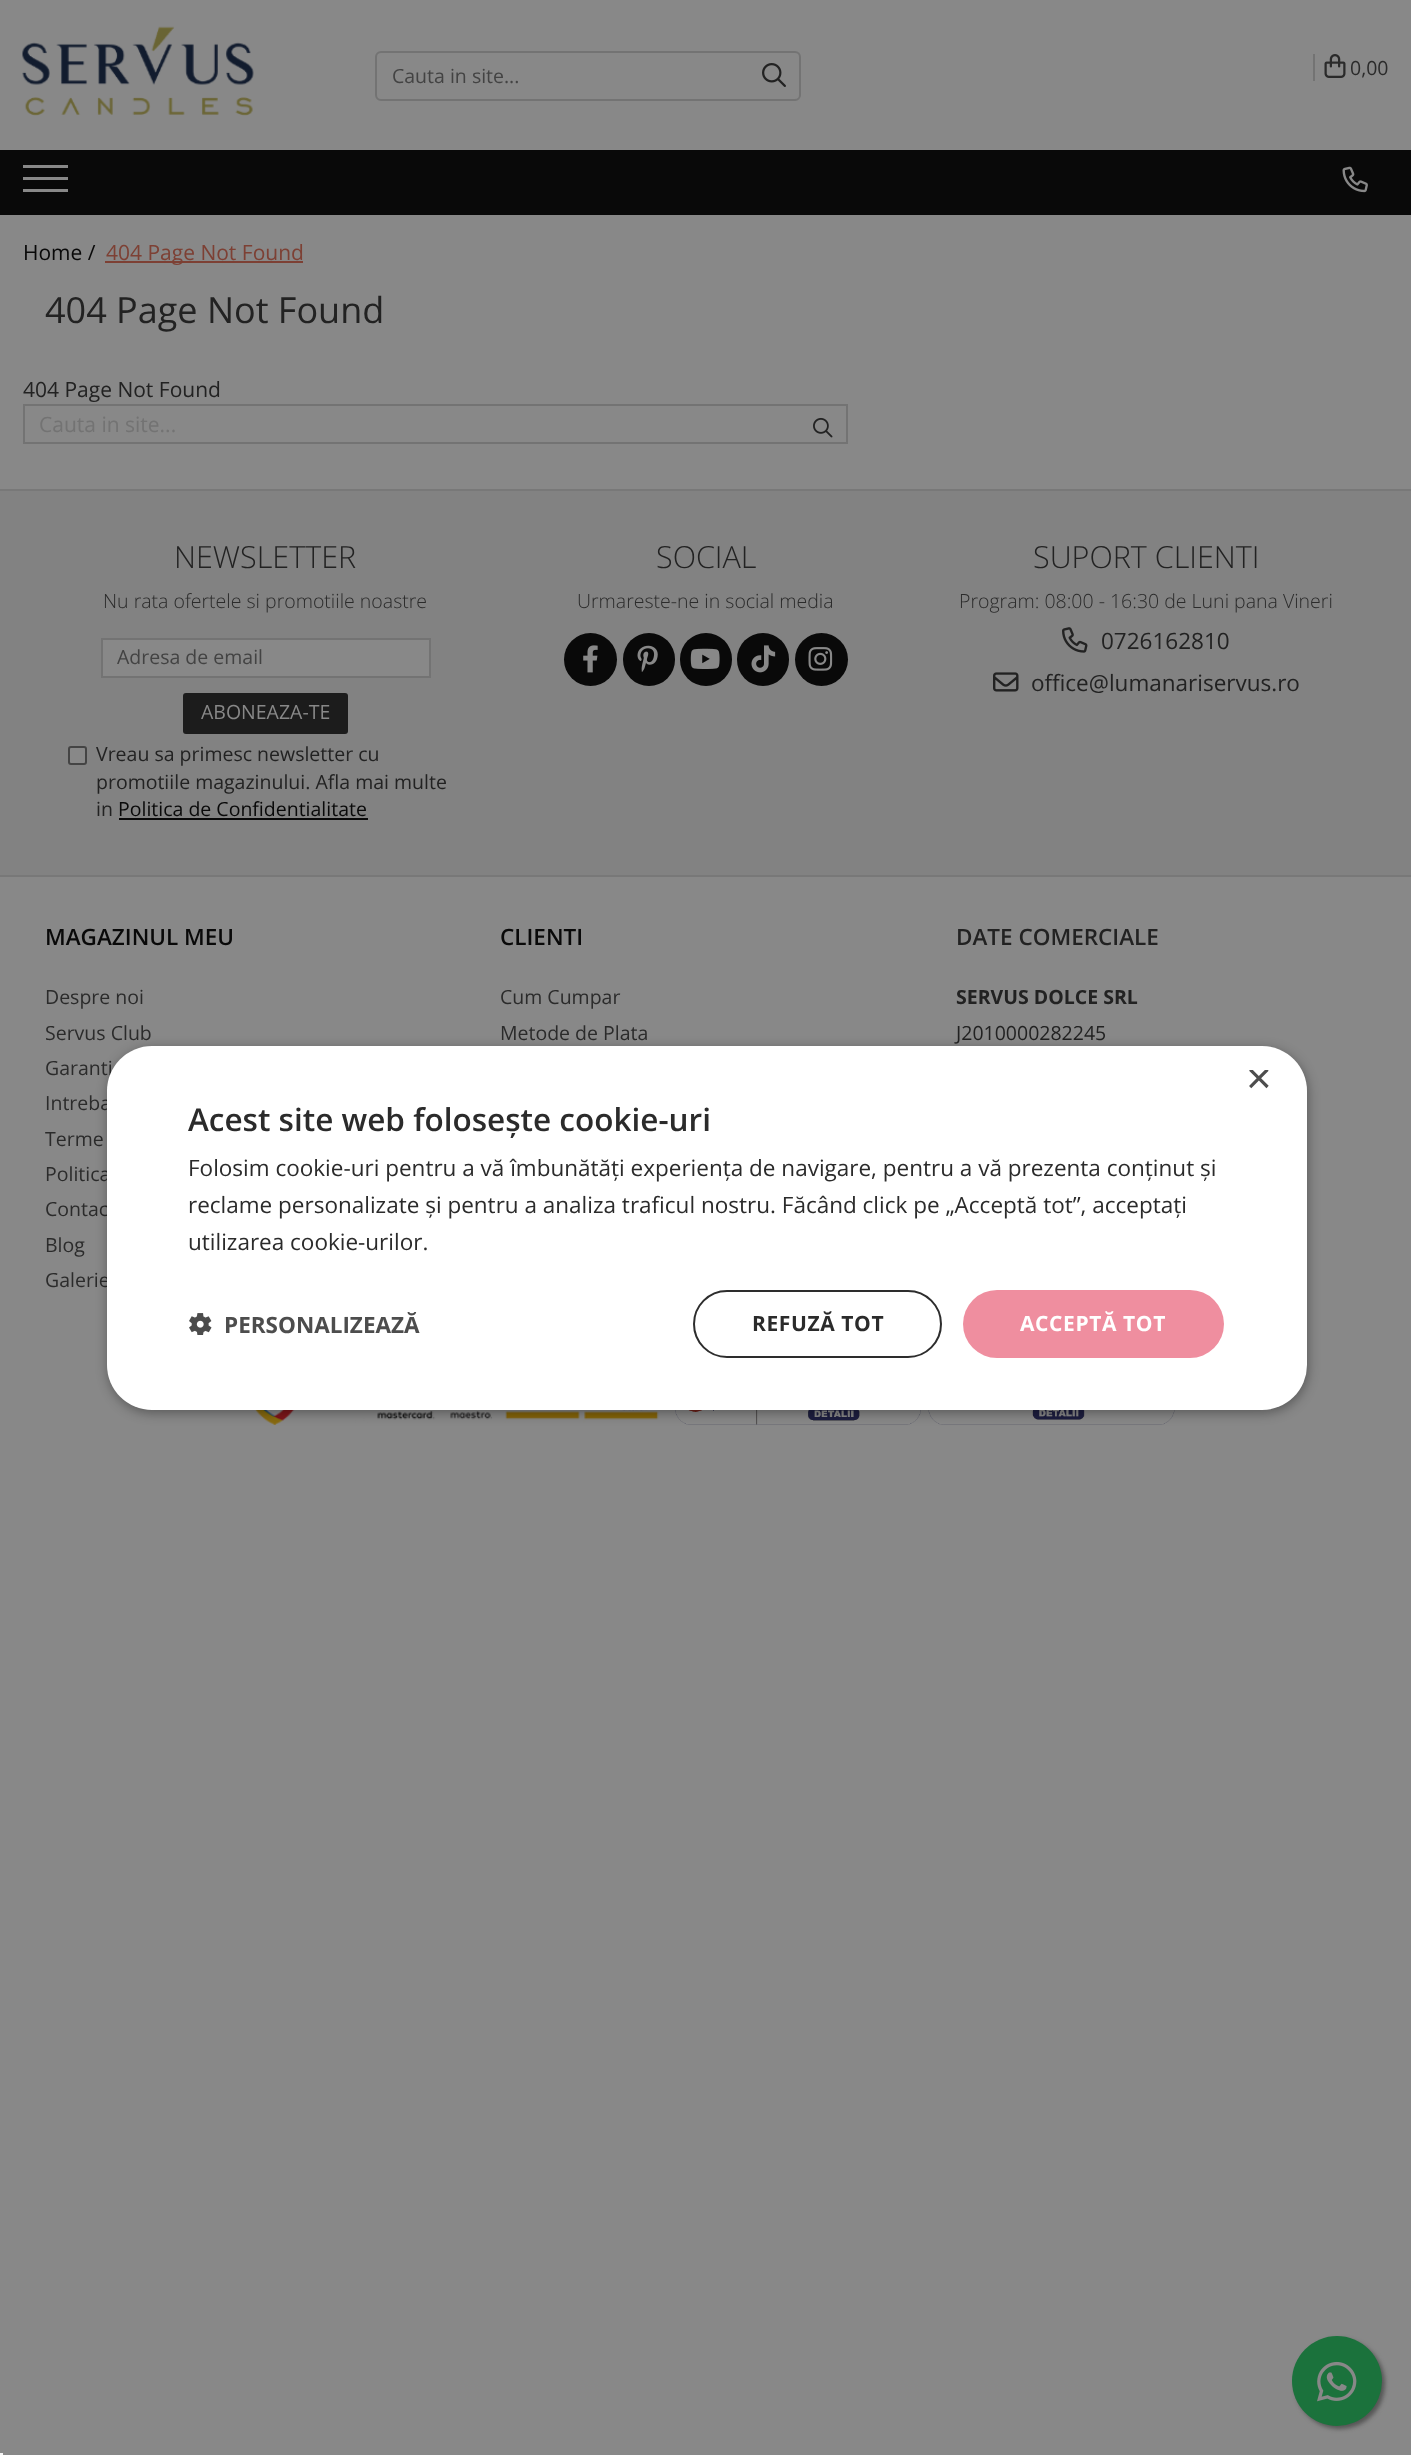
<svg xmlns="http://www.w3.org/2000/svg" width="1411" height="2455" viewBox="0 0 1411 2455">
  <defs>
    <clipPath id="clip1"><rect x="1247" y="1070" width="22" height="22"/></clipPath>
  </defs>
  <rect width="100%" height="100%" fill="rgb(136,136,136)"/>
  <image x="22" y="26" width="232" height="90" href="pic1.png"/>
  <rect x="376" y="52" width="424" height="48" rx="5" fill="none" stroke="rgb(115,115,115)" stroke-width="2"/>
  <text x="392" y="83" font-family="Open Sans" font-size="19.5" fill="rgb(67,67,67)">Cauta in site...</text>
  <image x="762" y="63" width="24" height="24" href="pic2.png"/>
  <rect x="1313" y="54" width="2" height="27" fill="rgb(115,115,115)"/>
  <image x="1324" y="54" width="22" height="24" href="pic3.png"/>
  <text x="1350" y="75" font-family="Open Sans" font-size="19.5" fill="rgb(43,43,43)">0,00</text>
  <rect x="0" y="150" width="1411" height="65" fill="rgb(9,9,9)"/>
  <rect x="23" y="177" width="45" height="3" fill="rgb(136,136,136)"/>
  <rect x="23" y="165" width="45" height="3" fill="rgb(136,136,136)"/>
  <rect x="23" y="189" width="45" height="3" fill="rgb(136,136,136)"/>
  <image x="1342" y="166" width="26" height="27" href="pic4.png"/>
  <text x="23" y="260" font-family="Open Sans" font-size="21" fill="rgb(9,9,9)">Home /</text>
  <rect x="105" y="261" width="198" height="2" fill="rgb(125,64,52)"/>
  <text x="106" y="260" font-family="Open Sans" font-size="21" fill="rgb(125,64,52)">404 Page Not Found</text>
  <text x="45" y="323" font-family="Open Sans" font-size="36" fill="rgb(34,34,34)">404 Page Not Found</text>
  <text x="23" y="397" font-family="Open Sans" font-size="21" fill="rgb(34,34,34)">404 Page Not Found</text>
  <rect x="24" y="405" width="823" height="38" fill="none" stroke="rgb(115,115,115)" stroke-width="2"/>
  <text x="39" y="432" font-family="Open Sans" font-size="21" fill="rgb(115,115,115)">Cauta in site...</text>
  <image x="813" y="417" width="20" height="21" href="pic5.png"/>
  <rect x="0" y="491" width="1411" height="384" fill="rgb(130,130,130)"/>
  <rect x="0" y="489" width="1411" height="2" fill="rgb(120,120,120)"/>
  <rect x="0" y="875" width="1411" height="2" fill="rgb(120,120,120)"/>
  <text x="174" y="568" font-family="Open Sans" font-size="30.5" font-weight="300" fill="rgb(34,34,34)">NEWSLETTER</text>
  <text x="103" y="608" font-family="Open Sans" font-size="19.5" font-weight="300" fill="rgb(43,43,43)">Nu rata ofertele si promotiile noastre</text>
  <rect x="102" y="639" width="328" height="38" fill="rgb(136,136,136)" stroke="rgb(115,115,115)" stroke-width="2"/>
  <text x="117" y="664" font-family="Open Sans" font-size="19.5" fill="rgb(67,67,67)">Adresa de email</text>
  <rect x="183" y="693" width="165" height="41" rx="3" fill="rgb(28,28,28)"/>
  <text x="201" y="719" font-family="Open Sans" font-size="19.5" fill="rgb(136,136,136)">ABONEAZA-TE</text>
  <rect x="69" y="747" width="17" height="17" rx="2" fill="rgb(136,136,136)" stroke="rgb(68,68,68)" stroke-width="2"/>
  <g font-family="Open Sans" font-size="19.5" fill="rgb(34,34,34)">
    <text>
      <tspan x="96" y="761">Vreau sa primesc newsletter cu</tspan>
      <tspan x="96" y="789">promotiile magazinului. Afla mai multe</tspan>
      <tspan x="96" y="816">in</tspan>
    </text>
  </g>
  <text x="118" y="816" font-family="Open Sans" font-size="19.5" fill="rgb(9,9,9)">Politica de Confidentialitate</text>
  <rect x="119" y="818" width="249" height="2" fill="rgb(9,9,9)"/>
  <text x="656" y="568" font-family="Open Sans" font-size="30.5" font-weight="300" fill="rgb(34,34,34)">SOCIAL</text>
  <text x="577" y="608" font-family="Open Sans" font-size="19.5" font-weight="300" fill="rgb(43,43,43)">Urmareste-ne in social media</text>
  <circle cx="590.5" cy="659.5" r="26.5" fill="rgb(9,9,9)"/>
  <image x="583" y="645" width="15" height="28" href="pic6.png"/>
  <rect x="623" y="633" width="52" height="53" rx="26" fill="rgb(9,9,9)"/>
  <image x="637" y="645" width="21" height="27" href="pic7.png"/>
  <rect x="680" y="633" width="52" height="53" rx="26" fill="rgb(9,9,9)"/>
  <image x="690" y="648" width="30" height="21" href="pic8.png"/>
  <rect x="737" y="633" width="52" height="53" rx="26" fill="rgb(9,9,9)"/>
  <image x="751" y="645" width="25" height="28" href="pic9.png"/>
  <circle cx="821.5" cy="659.5" r="26.5" fill="rgb(9,9,9)"/>
  <image x="808" y="647" width="25" height="24" href="pic10.png"/>
  <text x="1033" y="568" font-family="Open Sans" font-size="30.5" font-weight="300" fill="rgb(34,34,34)">SUPORT CLIENTI</text>
  <text x="959" y="608" font-family="Open Sans" font-size="19.5" font-weight="300" fill="rgb(43,43,43)">Program: 08:00 - 16:30 de Luni pana Vineri</text>
  <image x="1062" y="627" width="26" height="26" href="pic11.png"/>
  <text x="1101" y="649" font-family="Open Sans" font-size="22.5" fill="rgb(34,34,34)">0726162810</text>
  <image x="993" y="672" width="26" height="20" href="pic12.png"/>
  <text x="1031" y="691" font-family="Open Sans" font-size="22.5" fill="rgb(34,34,34)">office@lumanariservus.ro</text>
  <text x="45" y="945" font-family="Open Sans" font-size="22.5" font-weight="600" fill="rgb(9,9,9)">MAGAZINUL MEU</text>
  <g font-family="Open Sans" font-size="19.5" fill="rgb(43,43,43)">
    <text>
      <tspan x="45" y="1004">Despre noi</tspan>
      <tspan x="45" y="1040">Servus Club</tspan>
      <tspan x="45" y="1075">Garanti</tspan>
      <tspan x="45" y="1110">Intreba</tspan>
      <tspan x="45" y="1146">Terme</tspan>
      <tspan x="45" y="1181">Politica</tspan>
      <tspan x="45" y="1216">Contac</tspan>
      <tspan x="45" y="1252">Blog</tspan>
      <tspan x="45" y="1287">Galerie</tspan>
    </text>
  </g>
  <text x="500" y="945" font-family="Open Sans" font-size="22.5" font-weight="600" fill="rgb(9,9,9)">CLIENTI</text>
  <g font-family="Open Sans" font-size="19.5" fill="rgb(43,43,43)">
    <text>
      <tspan x="500" y="1004">Cum Cumpar</tspan>
      <tspan x="500" y="1040">Metode de Plata</tspan>
    </text>
  </g>
  <text x="956" y="945" font-family="Open Sans" font-size="22.5" font-weight="600" fill="rgb(34,34,34)">DATE COMERCIALE</text>
  <text x="956" y="1004" font-family="Open Sans" font-size="19.5" font-weight="bold" fill="rgb(34,34,34)">SERVUS DOLCE SRL</text>
  <text x="956" y="1040" font-family="Open Sans" font-size="19.5" fill="rgb(34,34,34)">J2010000282245</text>
  <image x="248" y="1410" width="411" height="15" href="pic13.png"/>
  <image x="675" y="1410" width="246" height="15" href="pic14.png"/>
  <image x="928" y="1410" width="247" height="15" href="pic15.png"/>
  <rect x="108" y="1049" width="1200" height="364" rx="45" fill="rgba(0,0,0,0.35)" filter="blur(6px)"/>
  <rect x="107" y="1046" width="1200" height="364" rx="45" fill="rgb(255,255,255)"/>
  <g clip-path="url(#clip1)">
    <text x="1246" y="1093" font-family="Liberation Sans" font-size="44" fill="rgb(77,77,77)">×</text>
  </g>
  <text x="188" y="1131" font-family="Open Sans" font-size="31.5" font-weight="600" fill="rgb(43,43,43)">Acest site web folosește cookie-uri</text>
  <g font-family="Open Sans" font-size="22.5" fill="rgb(43,43,43)">
    <text>
      <tspan x="188" y="1176">Folosim cookie-uri pentru a vă îmbunătăți experiența de navigare, pentru a vă prezenta conținut și</tspan>
      <tspan x="188" y="1213">reclame personalizate și pentru a analiza traficul nostru. Făcând click pe „Acceptă tot”, acceptați</tspan>
      <tspan x="188" y="1250">utilizarea cookie-urilor.</tspan>
    </text>
  </g>
  <image x="189" y="1313" width="23" height="22" href="pic16.png"/>
  <text x="224" y="1333" font-family="Open Sans" font-size="22.5" font-weight="bold" fill="rgb(77,77,77)">PERSONALIZEAZĂ</text>
  <rect x="694" y="1291" width="247" height="66" rx="33" fill="none" stroke="rgb(45,45,45)" stroke-width="2"/>
  <text x="752" y="1331" font-family="Open Sans" font-size="21" font-weight="bold" letter-spacing="0.6" fill="rgb(43,43,43)">REFUZĂ TOT</text>
  <rect x="963" y="1290" width="261" height="68" rx="34" fill="rgb(239,142,159)"/>
  <text x="1020" y="1331" font-family="Open Sans" font-size="21" font-weight="bold" letter-spacing="0.6" fill="rgb(255,255,255)">ACCEPTĂ TOT</text>
  <rect x="1295" y="2339" width="90" height="90" rx="45" fill="rgb(85,85,85)" filter="blur(2px)"/>
  <circle cx="1337" cy="2381" r="45" fill="rgb(27,114,60)"/>
  <image x="1317" y="2361" width="40" height="41" href="pic17.png"/>
  <rect x="0" y="2453" width="3" height="2" fill="rgb(245,245,245)"/>
</svg>
